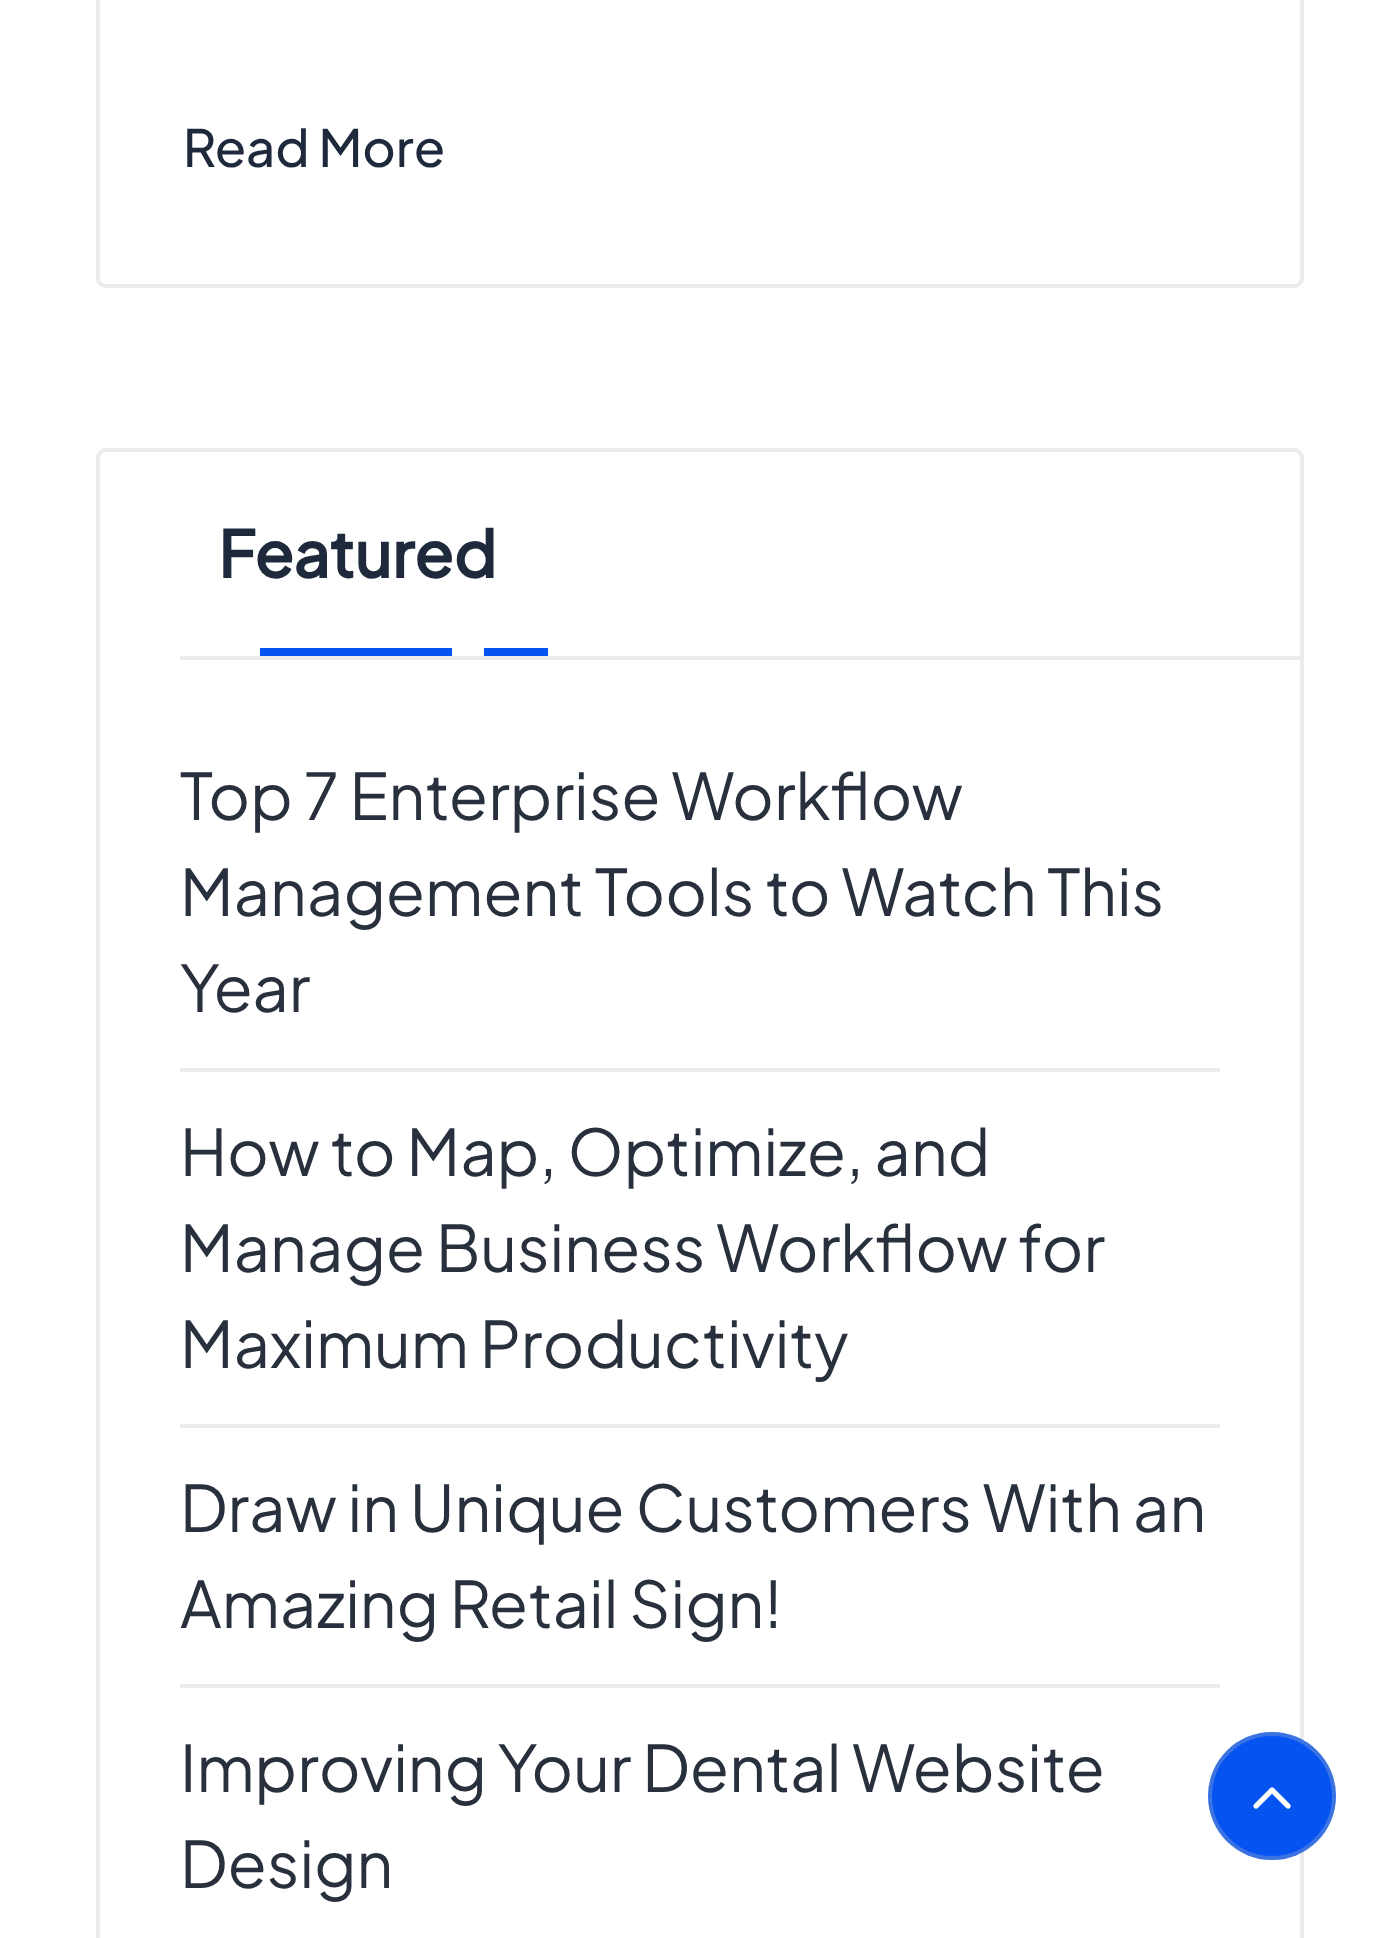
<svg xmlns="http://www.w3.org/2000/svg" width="1399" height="1938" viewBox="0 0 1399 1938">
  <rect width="100%" height="100%" fill="rgb(255,255,255)"/>
  <rect x="98" y="-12" width="1204" height="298" rx="8" fill="none" stroke="rgb(236,236,236)" stroke-width="4"/>
  <text x="183" y="167" font-family="Plus Jakarta Sans" font-size="51.25" font-weight="500" fill="rgb(30,41,59)">Read More</text>
  <rect x="98" y="450" width="1204" height="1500" rx="8" fill="none" stroke="rgb(236,236,236)" stroke-width="4"/>
  <rect x="180" y="656" width="1120" height="4" fill="rgb(236,236,236)"/>
  <text x="218" y="578" font-family="Plus Jakarta Sans" font-size="64" font-weight="bold" fill="rgb(30,41,59)">Featured</text>
  <rect x="260" y="648" width="192" height="8" fill="rgb(5,84,242)"/>
  <rect x="484" y="648" width="64" height="8" fill="rgb(5,84,242)"/>
  <g font-family="Plus Jakarta Sans" font-size="64" fill="rgb(40,48,61)">
    <text>
      <tspan x="180" y="820">Top 7 Enterprise Workflow</tspan>
      <tspan x="180" y="916">Management Tools to Watch This</tspan>
      <tspan x="180" y="1012">Year</tspan>
    </text>
  </g>
  <rect x="180" y="1068" width="1040" height="4" fill="rgb(236,236,236)"/>
  <g font-family="Plus Jakarta Sans" font-size="64" fill="rgb(40,48,61)">
    <text>
      <tspan x="180" y="1176">How to Map, Optimize, and</tspan>
      <tspan x="180" y="1272">Manage Business Workflow for</tspan>
      <tspan x="180" y="1368">Maximum Productivity</tspan>
    </text>
  </g>
  <rect x="180" y="1424" width="1040" height="4" fill="rgb(236,236,236)"/>
  <g font-family="Plus Jakarta Sans" font-size="64" fill="rgb(40,48,61)">
    <text>
      <tspan x="180" y="1532">Draw in Unique Customers With an</tspan>
      <tspan x="180" y="1628">Amazing Retail Sign!</tspan>
    </text>
  </g>
  <rect x="180" y="1684" width="1040" height="4" fill="rgb(236,236,236)"/>
  <g font-family="Plus Jakarta Sans" font-size="64" fill="rgb(40,48,61)">
    <text>
      <tspan x="180" y="1792">Improving Your Dental Website</tspan>
      <tspan x="180" y="1888">Design</tspan>
    </text>
  </g>
  <circle cx="1272" cy="1796" r="64" fill="rgb(5,84,242)"/>
  <circle cx="1272" cy="1796" r="62" fill="none" stroke="rgba(190,190,190,0.3)" stroke-width="4"/>
  <image x="1253" y="1787" width="38" height="22" href="pic1.png"/>
</svg>
